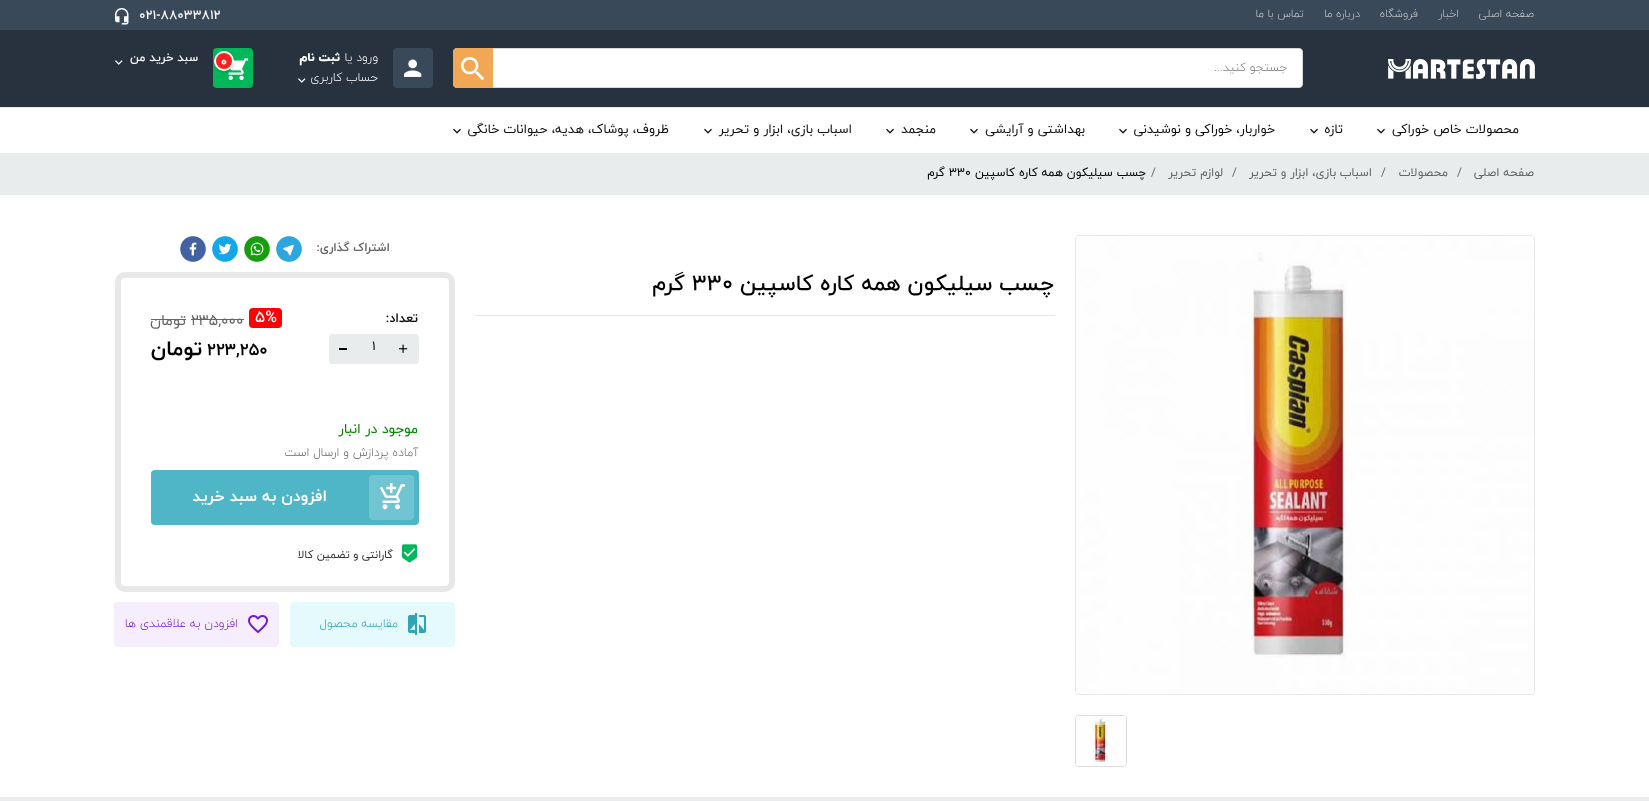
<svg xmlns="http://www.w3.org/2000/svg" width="1649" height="801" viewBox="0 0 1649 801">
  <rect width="100%" height="100%" fill="rgb(233,236,236)"/>
  <rect x="0" y="0" width="1649" height="30" fill="rgb(58,73,90)"/>
  <g font-family="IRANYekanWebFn" font-size="11" font-weight="300" direction="rtl" fill="rgb(204,204,204)">
    <text x="1534" y="17">صفحه اصلی</text>
    <text x="1459" y="17">اخبار</text>
    <text x="1418" y="17">فروشگاه</text>
    <text x="1360" y="17">درباره ما</text>
    <text x="1304" y="17">تماس با ما</text>
  </g>
  <text x="139" y="19" font-family="IRANYekanWebFn" font-size="13" font-weight="500" fill="rgb(255,255,255)">021-88033812</text>
  <image x="115" y="8" width="14" height="17" href="pic1.png"/>
  <rect x="0" y="30" width="1649" height="77" fill="rgb(40,50,63)"/>
  <image x="1388" y="59" width="147" height="20" href="pic2.png"/>
  <rect x="453.5" y="48.5" width="849" height="39" rx="3.5" fill="rgb(255,255,255)" stroke="rgb(216,216,216)"/>
  <text x="1287" y="71" font-family="IRANYekanWebFn" font-size="12" font-weight="300" direction="rtl" fill="rgb(117,117,117)">جستجو کنید...</text>
  <path d="M457 48H493V88H457C455 88 453 86 453 84V52C453 50 455 48 457 48Z" fill="rgb(242,167,84)"/>
  <image x="461" y="57" width="24" height="24" href="pic3.png"/>
  <rect x="393" y="48" width="40" height="40" rx="4" fill="rgb(58,73,90)"/>
  <image x="404" y="59" width="18" height="18" href="pic4.png"/>
  <text x="378" y="61" font-family="IRANYekanWebFn" font-size="12" font-weight="300" direction="rtl" fill="rgb(255,255,255)">ورود یا</text>
  <text x="340" y="61" font-family="IRANYekanWebFn" font-size="12" font-weight="800" direction="rtl" fill="rgb(255,255,255)">ثبت نام</text>
  <text x="378" y="81" font-family="IRANYekanWebFn" font-size="12" font-weight="300" direction="rtl" fill="rgb(255,255,255)">حساب کاربری</text>
  <image x="298" y="78" width="8" height="5" href="pic5.png"/>
  <rect x="213" y="48" width="40" height="40" rx="4" fill="rgb(0,184,89)"/>
  <image x="228" y="58" width="21" height="23" href="pic6.png"/>
  <rect x="214" y="52" width="20" height="20" rx="10" fill="rgba(0,0,0,0.2)" filter="blur(1.5px)"/>
  <circle cx="224" cy="61" r="9" fill="rgb(255,32,32)" stroke="rgb(255,255,255)" stroke-width="2"/>
  <text x="221" y="65" font-family="IRANYekanWebFn" font-size="11" font-weight="800" fill="rgb(255,255,255)">0</text>
  <text x="198" y="61" font-family="IRANYekanWebFn" font-size="12" font-weight="500" direction="rtl" fill="rgb(255,255,255)">سبد خرید من</text>
  <image x="115" y="60" width="8" height="5" href="pic5.png"/>
  <rect x="0" y="108" width="1649" height="45" fill="rgb(255,255,255)"/>
  <rect x="0" y="107" width="1649" height="1" fill="rgb(232,232,232)"/>
  <text x="1519" y="133" font-family="IRANYekanWebFn" font-size="13" direction="rtl" fill="rgb(17,17,17)">محصولات خاص خوراکی</text>
  <image x="1377" y="128" width="8" height="6" href="pic7.png"/>
  <text x="1343" y="133" font-family="IRANYekanWebFn" font-size="13" direction="rtl" fill="rgb(17,17,17)">تازه</text>
  <image x="1310" y="128" width="8" height="6" href="pic7.png"/>
  <text x="1275" y="133" font-family="IRANYekanWebFn" font-size="13" direction="rtl" fill="rgb(17,17,17)">خواربار، خوراکی و نوشیدنی</text>
  <image x="1119" y="128" width="8" height="6" href="pic7.png"/>
  <text x="1085" y="133" font-family="IRANYekanWebFn" font-size="13" direction="rtl" fill="rgb(17,17,17)">بهداشتی و آرایشی</text>
  <image x="970" y="128" width="8" height="6" href="pic7.png"/>
  <text x="936" y="133" font-family="IRANYekanWebFn" font-size="13" direction="rtl" fill="rgb(17,17,17)">منجمد</text>
  <image x="886" y="128" width="8" height="6" href="pic7.png"/>
  <text x="852" y="133" font-family="IRANYekanWebFn" font-size="13" direction="rtl" fill="rgb(17,17,17)">اسباب بازی، ابزار و تحریر</text>
  <image x="704" y="128" width="8" height="6" href="pic7.png"/>
  <text x="669" y="133" font-family="IRANYekanWebFn" font-size="13" direction="rtl" fill="rgb(17,17,17)">ظروف، پوشاک، هدیه، حیوانات خانگی</text>
  <image x="453" y="128" width="8" height="6" href="pic7.png"/>
  <text x="1534" y="176" font-family="IRANYekanWebFn" font-size="12" direction="rtl" fill="rgb(102,102,102)">صفحه اصلی</text>
  <text x="1457" y="176" font-family="IRANYekanWebFn" font-size="12" fill="rgb(102,102,102)">/</text>
  <text x="1448" y="176" font-family="IRANYekanWebFn" font-size="12" direction="rtl" fill="rgb(102,102,102)">محصولات</text>
  <text x="1381" y="176" font-family="IRANYekanWebFn" font-size="12" fill="rgb(102,102,102)">/</text>
  <text x="1372" y="176" font-family="IRANYekanWebFn" font-size="12" direction="rtl" fill="rgb(102,102,102)">اسباب بازی، ابزار و تحریر</text>
  <text x="1232" y="176" font-family="IRANYekanWebFn" font-size="12" fill="rgb(102,102,102)">/</text>
  <text x="1223" y="176" font-family="IRANYekanWebFn" font-size="12" direction="rtl" fill="rgb(102,102,102)">لوازم تحریر</text>
  <text x="1151" y="176" font-family="IRANYekanWebFn" font-size="12" fill="rgb(102,102,102)">/</text>
  <text x="1146" y="176" font-family="IRANYekanWebFn" font-size="12" direction="rtl" fill="rgb(0,0,0)">چسب سیلیکون همه کاره کاسپین</text>
  <text x="949" y="176" font-family="IRANYekanWebFn" font-size="12" fill="rgb(0,0,0)">330</text>
  <text x="945" y="176" font-family="IRANYekanWebFn" font-size="12" direction="rtl" fill="rgb(0,0,0)">گرم</text>
  <rect x="0" y="195" width="1649" height="602" fill="rgb(255,255,255)"/>
  <rect x="1075.5" y="235.5" width="459" height="459" rx="3.5" fill="none" stroke="rgb(232,232,232)"/>
  <image x="1076" y="236" width="458" height="458" href="pic8.png"/>
  <rect x="1075.5" y="715.5" width="51" height="51" rx="3.5" fill="none" stroke="rgb(221,221,221)"/>
  <image x="1076" y="716" width="50" height="50" href="pic9.png"/>
  <text x="1054" y="290" font-family="IRANYekanWebFn" font-size="22" font-weight="500" direction="rtl" fill="rgb(0,0,0)">چسب سیلیکون همه کاره کاسپین</text>
  <text x="692" y="290" font-family="IRANYekanWebFn" font-size="22" font-weight="500" fill="rgb(0,0,0)">330</text>
  <text x="685" y="290" font-family="IRANYekanWebFn" font-size="22" font-weight="500" direction="rtl" fill="rgb(0,0,0)">گرم</text>
  <rect x="475" y="315" width="580" height="1" fill="rgb(232,232,232)"/>
  <text x="390" y="251" font-family="IRANYekanWebFn" font-size="12" font-weight="bold" direction="rtl" fill="rgb(102,102,102)">اشتراک گذاری:</text>
  <image x="276" y="236" width="26" height="26" href="pic10.png"/>
  <image x="244" y="236" width="26" height="26" href="pic11.png"/>
  <image x="212" y="236" width="26" height="26" href="pic12.png"/>
  <image x="180" y="236" width="26" height="26" href="pic13.png"/>
  <rect x="118" y="275" width="334" height="314" rx="7" fill="none" stroke="rgb(232,232,232)" stroke-width="6"/>
  <text x="418" y="322" font-family="IRANYekanWebFn" font-size="13" font-weight="bold" direction="rtl" fill="rgb(17,17,17)">تعداد:</text>
  <rect x="329" y="334" width="90" height="30" rx="4" fill="rgb(233,236,236)"/>
  <image x="399" y="344" width="9" height="9" href="pic14.png"/>
  <text x="372" y="350" font-family="IRANYekanWebFn" font-size="13" fill="rgb(0,0,0)">1</text>
  <rect x="339" y="348" width="8" height="2" fill="rgb(0,0,0)"/>
  <rect x="249" y="308" width="33" height="20" rx="4" fill="rgb(255,0,0)"/>
  <text x="255" y="322" font-family="IRANYekanWebFn" font-size="16" font-weight="500" fill="rgb(255,255,255)">5%</text>
  <text x="191" y="325" font-family="IRANYekanWebFn" font-size="15" fill="rgb(102,102,102)">235,000</text>
  <rect x="191" y="319" width="53" height="1" fill="rgb(102,102,102)"/>
  <text x="186" y="325" font-family="IRANYekanWebFn" font-size="15" direction="rtl" fill="rgb(102,102,102)">تومان</text>
  <rect x="151" y="319" width="35" height="1" fill="rgb(102,102,102)"/>
  <text x="207" y="355" font-family="IRANYekanWebFn" font-size="17" font-weight="bold" fill="rgb(0,0,0)">223,250</text>
  <text x="202" y="355" font-family="IRANYekanWebFn" font-size="21" font-weight="bold" direction="rtl" fill="rgb(0,0,0)">تومان</text>
  <text x="418" y="433" font-family="IRANYekanWebFn" font-size="14" direction="rtl" fill="rgb(0,138,0)">موجود در انبار</text>
  <text x="418" y="456" font-family="IRANYekanWebFn" font-size="12" font-weight="300" direction="rtl" fill="rgb(102,102,102)">آماده پردازش و ارسال است</text>
  <rect x="151" y="470" width="268" height="55" rx="4" fill="rgb(78,182,199)"/>
  <rect x="369" y="475" width="45" height="45" rx="4" fill="rgb(113,197,210)"/>
  <image x="379" y="483" width="26" height="27" href="pic15.png"/>
  <text x="327" y="501" font-family="IRANYekanWebFn" font-size="16" font-weight="bold" direction="rtl" fill="rgb(255,255,255)">افزودن به سبد خرید</text>
  <image x="402" y="544" width="15" height="19" href="pic16.png"/>
  <text x="393" y="558" font-family="IRANYekanWebFn" font-size="11" direction="rtl" fill="rgb(51,51,51)">گارانتی و تضمین کالا</text>
  <rect x="290" y="602" width="165" height="45" rx="4" fill="rgb(229,250,253)"/>
  <image x="408" y="613" width="18" height="22" href="pic17.png"/>
  <text x="398" y="627" font-family="IRANYekanWebFn" font-size="12" font-weight="300" direction="rtl" fill="rgb(48,164,183)">مقایسه محصول</text>
  <rect x="114" y="602" width="165" height="45" rx="4" fill="rgb(246,238,255)"/>
  <image x="248" y="615" width="20" height="19" href="pic18.png"/>
  <text x="238" y="627" font-family="IRANYekanWebFn" font-size="12" font-weight="300" direction="rtl" fill="rgb(113,29,205)">افزودن به علاقمندی ها</text>
</svg>
